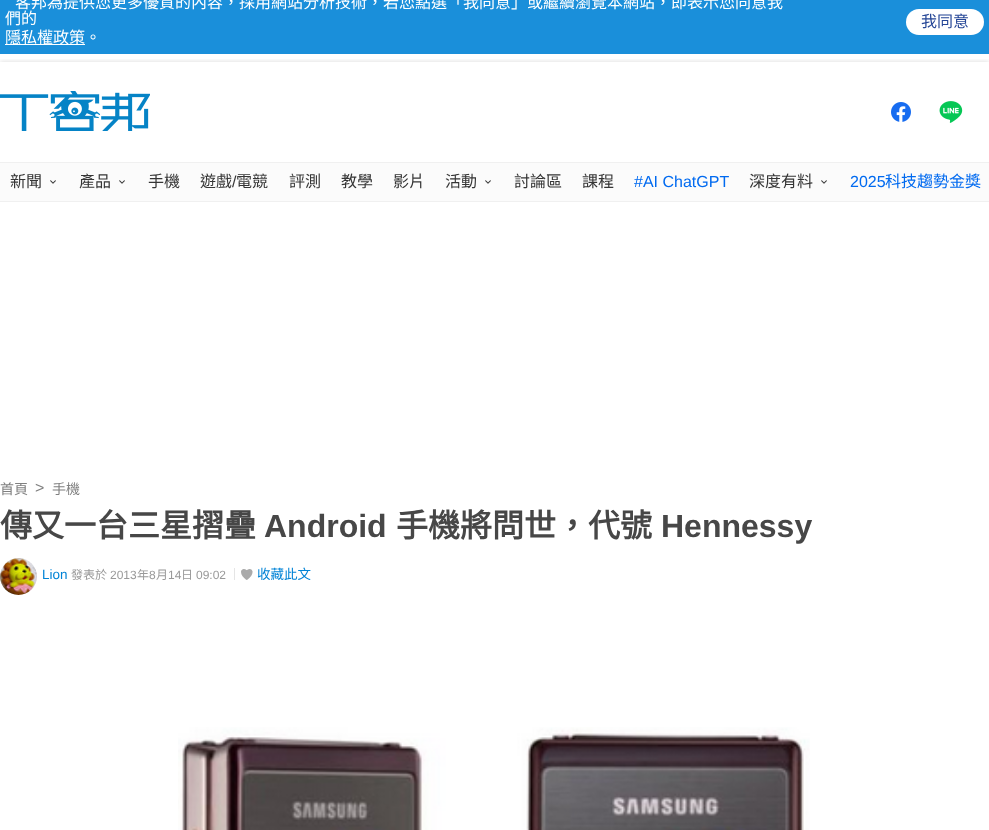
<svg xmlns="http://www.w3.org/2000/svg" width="989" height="830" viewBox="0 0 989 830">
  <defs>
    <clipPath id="clip1"><rect x="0" y="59" width="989" height="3"/></clipPath>
  </defs>
  <rect width="100%" height="100%" fill="rgb(255,255,255)"/>
  <rect x="0" y="0" width="989" height="54" fill="rgb(26,143,218)"/>
  <g font-family="Noto Sans CJK TC" font-size="16" fill="rgb(255,255,255)">
    <text x="15" y="8">客邦為提供您更多優質的內容，採用網站分析技術，若您點選「我同意」或繼續瀏覽本網站，即表示您同意我</text>
    <text x="5" y="24">們的</text>
  </g>
  <rect x="5" y="44" width="80" height="1" fill="rgb(255,255,255)"/>
  <text x="5" y="43" font-family="Noto Sans CJK TC" font-size="16" fill="rgb(255,255,255)">隱私權政策。</text>
  <rect x="906" y="9" width="78" height="26" rx="13" fill="rgb(255,255,255)"/>
  <text x="921" y="27" font-family="Noto Sans CJK TC" font-size="16" fill="rgb(37,70,150)">我同意</text>
  <g clip-path="url(#clip1)">
    <rect x="0" y="62" width="989" height="100" fill="rgba(0,0,0,0.15)" filter="blur(2.5px)"/>
  </g>
  <image x="0" y="91" width="150" height="40" href="pic1.png"/>
  <image x="891" y="102" width="20" height="20" href="pic2.png"/>
  <image x="939" y="101" width="24" height="22" href="pic3.png"/>
  <rect x="0" y="163" width="989" height="38" fill="rgb(251,251,251)"/>
  <rect x="0" y="162" width="989" height="1" fill="rgb(240,240,240)"/>
  <rect x="0" y="201" width="989" height="1" fill="rgb(240,240,240)"/>
  <text x="10" y="187" font-family="Noto Sans CJK TC" font-size="16" fill="rgb(53,53,53)">新聞</text>
  <image x="50" y="180" width="6" height="4" href="pic4.png"/>
  <text x="79" y="187" font-family="Noto Sans CJK TC" font-size="16" fill="rgb(53,53,53)">產品</text>
  <image x="119" y="180" width="6" height="4" href="pic4.png"/>
  <g font-family="Noto Sans CJK TC" font-size="16" fill="rgb(53,53,53)">
    <text x="148" y="187">手機</text>
    <text x="200" y="187">遊戲</text>
  </g>
  <text x="232" y="187" font-family="Liberation Sans" font-size="16" fill="rgb(53,53,53)">/</text>
  <g font-family="Noto Sans CJK TC" font-size="16" fill="rgb(53,53,53)">
    <text x="236" y="187">電競</text>
    <text x="289" y="187">評測</text>
    <text x="341" y="187">教學</text>
    <text x="393" y="187">影片</text>
    <text x="445" y="187">活動</text>
  </g>
  <image x="485" y="180" width="6" height="4" href="pic4.png"/>
  <g font-family="Noto Sans CJK TC" font-size="16" fill="rgb(53,53,53)">
    <text x="514" y="187">討論區</text>
    <text x="582" y="187">課程</text>
  </g>
  <text x="634" y="187" font-family="Liberation Sans" font-size="16" fill="rgb(0,106,240)">#AI ChatGPT</text>
  <text x="749" y="187" font-family="Noto Sans CJK TC" font-size="16" fill="rgb(53,53,53)">深度有料</text>
  <image x="821" y="180" width="6" height="4" href="pic4.png"/>
  <text x="850" y="187" font-family="Liberation Sans" font-size="16" fill="rgb(0,106,240)">2025</text>
  <text x="885" y="187" font-family="Noto Sans CJK TC" font-size="16" fill="rgb(0,106,240)">科技趨勢金獎</text>
  <text x="0" y="494" font-family="Noto Sans CJK TC" font-size="14" fill="rgb(128,128,128)">首頁</text>
  <text x="35" y="493" font-family="Liberation Sans" font-size="16" fill="rgb(128,128,128)">&gt;</text>
  <text x="52" y="494" font-family="Noto Sans CJK TC" font-size="14" fill="rgb(128,128,128)">手機</text>
  <text x="0" y="537" font-family="Noto Sans CJK TC" font-size="32" font-weight="bold" fill="rgb(71,71,71)">傳又一台三星摺疊</text>
  <text x="264" y="537" font-family="Liberation Sans" font-size="32" font-weight="bold" fill="rgb(71,71,71)">Android</text>
  <text x="396" y="537" font-family="Noto Sans CJK TC" font-size="32" font-weight="bold" fill="rgb(71,71,71)">手機將問世，代號</text>
  <text x="661" y="537" font-family="Liberation Sans" font-size="32" font-weight="bold" fill="rgb(71,71,71)">Hennessy</text>
  <image x="0" y="558" width="37" height="37" href="pic5.png"/>
  <text x="42" y="579" font-family="Liberation Sans" font-size="13.5" fill="rgb(0,131,214)">Lion</text>
  <text x="71" y="579" font-family="Noto Sans CJK TC" font-size="12" fill="rgb(153,153,153)">發表於</text>
  <text x="110" y="579" font-family="Liberation Sans" font-size="12" fill="rgb(153,153,153)">2013</text>
  <text x="137" y="579" font-family="Noto Sans CJK TC" font-size="12" fill="rgb(153,153,153)">年</text>
  <text x="149" y="579" font-family="Liberation Sans" font-size="12" fill="rgb(153,153,153)">8</text>
  <text x="156" y="579" font-family="Noto Sans CJK TC" font-size="12" fill="rgb(153,153,153)">月</text>
  <text x="168" y="579" font-family="Liberation Sans" font-size="12" fill="rgb(153,153,153)">14</text>
  <text x="181" y="579" font-family="Noto Sans CJK TC" font-size="12" fill="rgb(153,153,153)">日</text>
  <text x="196" y="579" font-family="Liberation Sans" font-size="12" fill="rgb(153,153,153)">09:02</text>
  <rect x="234" y="568" width="1" height="12" fill="rgb(229,229,229)"/>
  <image x="241" y="569" width="12" height="11" href="pic6.png"/>
  <text x="257" y="579" font-family="Noto Sans CJK TC" font-size="13.5" fill="rgb(0,131,214)">收藏此文</text>
  <image x="178" y="727" width="632" height="103" href="pic7.png"/>
</svg>
